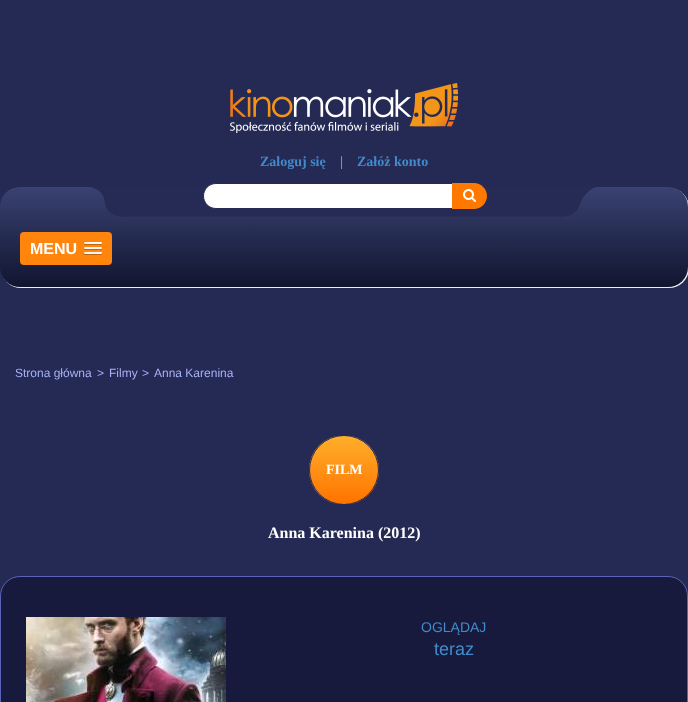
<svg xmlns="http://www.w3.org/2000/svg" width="688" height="702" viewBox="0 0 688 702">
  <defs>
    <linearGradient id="g1" gradientUnits="userSpaceOnUse" x1="344" y1="187" x2="344" y2="287"><stop offset="0" stop-color="rgb(57,66,113)"/><stop offset="1" stop-color="rgb(17,21,48)"/></linearGradient>
    <clipPath id="clip1"><rect x="309" y="435" width="70" height="70" rx="35"/></clipPath>
    <linearGradient id="g2" gradientUnits="userSpaceOnUse" x1="344" y1="436" x2="344" y2="504"><stop offset="0" stop-color="rgb(255,175,43)"/><stop offset="1" stop-color="rgb(255,115,0)"/></linearGradient>
  </defs>
  <rect width="100%" height="100%" fill="rgb(37,42,85)"/>
  <image x="230" y="83" width="228" height="50" href="pic1.png"/>
  <text x="260" y="166" font-family="Liberation Serif" font-size="14" font-weight="bold" fill="rgb(66,139,202)">Zaloguj się</text>
  <text x="340" y="166" font-family="Liberation Serif" font-size="14" font-weight="bold" fill="rgb(126,141,243)">|</text>
  <text x="357" y="166" font-family="Liberation Serif" font-size="14" font-weight="bold" fill="rgb(66,139,202)">Załóż konto</text>
  <rect x="1" y="188" width="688" height="100" rx="20" fill="rgb(235,237,240)" filter="blur(0.5px)"/>
  <rect x="0" y="187" width="688" height="100" rx="20" fill="url(#g1)"/>
  <image x="90" y="187" width="506" height="30" href="pic2.png"/>
  <path d="M216 183.5H452.5V208.5H216C209 208.5 203.5 203 203.5 196C203.5 189 209 183.5 216 183.5Z" fill="rgb(255,255,255)" stroke="rgb(37,42,85)"/>
  <path d="M452 183H474C481 183 487 189 487 196C487 203 481 209 474 209H452Z" fill="rgb(255,121,0)"/>
  <image x="463" y="189" width="13" height="13" href="pic3.png"/>
  <rect x="20" y="232" width="92" height="33" rx="4" fill="rgb(255,133,13)"/>
  <text x="30" y="254" font-family="Liberation Sans" font-size="16" font-weight="bold" fill="rgb(255,255,255)">MENU</text>
  <path d="M84 243.5C83 245.5 87.5 245 87.5 245H98.5C98.5 245 103 245.5 102 243.5C101 244.5 94.5 244 93 244C91.5 244 85 244.5 84 243.5Z" fill="rgb(191,100,10)"/>
  <rect x="84" y="242" width="18" height="2" rx="1" fill="rgb(245,245,245)"/>
  <path d="M84 248.5C83 250.5 87.5 250 87.5 250H98.5C98.5 250 103 250.5 102 248.5C101 249.5 94.5 249 93 249C91.5 249 85 249.5 84 248.5Z" fill="rgb(191,100,10)"/>
  <rect x="84" y="247" width="18" height="2" rx="1" fill="rgb(245,245,245)"/>
  <path d="M84 253.5C83 255.5 87.5 255 87.5 255H98.5C98.5 255 103 255.5 102 253.5C101 254.5 94.5 254 93 254C91.5 254 85 254.5 84 253.5Z" fill="rgb(191,100,10)"/>
  <rect x="84" y="252" width="18" height="2" rx="1" fill="rgb(245,245,245)"/>
  <g font-family="Liberation Sans" font-size="12" fill="rgb(168,177,244)">
    <text x="15" y="377">Strona główna</text>
    <text x="97" y="377">&gt;</text>
    <text x="109" y="377">Filmy</text>
    <text x="142" y="377">&gt;</text>
    <text x="154" y="377">Anna Karenina</text>
  </g>
  <g clip-path="url(#clip1)">
    <rect x="309" y="436" width="70" height="68" fill="url(#g2)"/>
  </g>
  <circle cx="344" cy="470" r="34.5" fill="none" stroke="rgb(37,42,85)"/>
  <text x="326" y="474" font-family="Liberation Serif" font-size="14" font-weight="bold" fill="rgb(255,255,255)">FILM</text>
  <text x="268" y="538" font-family="Liberation Serif" font-size="16" font-weight="bold" fill="rgb(255,255,255)">Anna Karenina (2012)</text>
  <rect x="0.5" y="576.5" width="687" height="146" rx="19.5" fill="rgb(23,26,60)" stroke="rgb(88,98,182)"/>
  <image x="26" y="617" width="200" height="85" href="pic4.png"/>
  <text x="421" y="632" font-family="Liberation Sans" font-size="14" fill="rgb(66,139,202)">OGLĄDAJ</text>
  <text x="434" y="655" font-family="Liberation Sans" font-size="18" fill="rgb(66,139,202)">teraz</text>
</svg>
